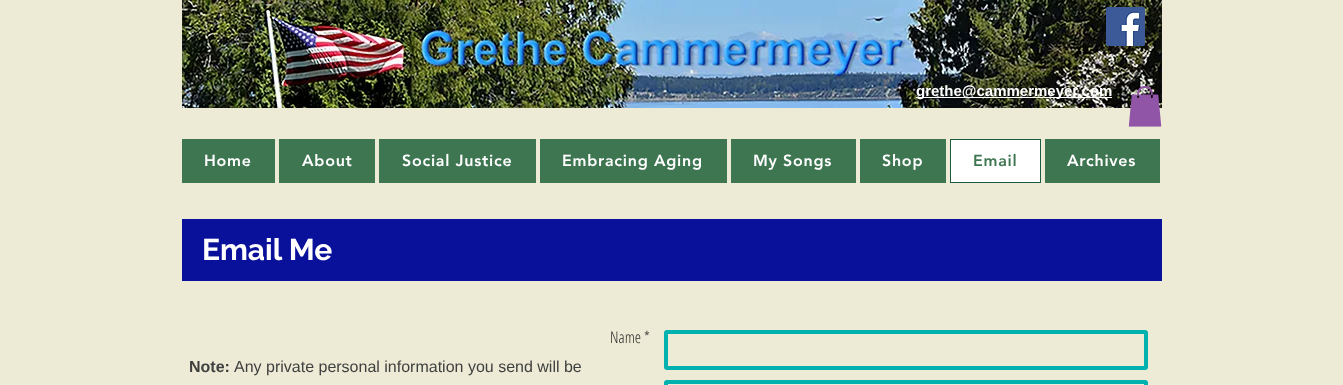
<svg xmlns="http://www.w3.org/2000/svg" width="1343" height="385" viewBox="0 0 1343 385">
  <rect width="100%" height="100%" fill="rgb(237,235,213)"/>
  <image x="182" y="0" width="980" height="108" href="pic1.png"/>
  <image x="1106" y="7" width="39" height="39" href="pic2.png"/>
  <rect x="916" y="97" width="196" height="1" fill="rgb(255,255,255)"/>
  <text x="916" y="96" font-family="Liberation Sans" font-size="15" font-weight="bold" fill="rgb(255,255,255)">grethe@cammermeyer.com</text>
  <image x="1128" y="86" width="34" height="41" href="pic3.png"/>
  <rect x="182" y="139" width="93" height="44" fill="rgb(63,118,82)"/>
  <text x="204" y="166" font-family="'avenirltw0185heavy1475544'" font-size="16" font-weight="900" letter-spacing="0.75" fill="rgb(255,255,255)">Home</text>
  <rect x="279" y="139" width="96" height="44" fill="rgb(63,118,82)"/>
  <text x="302" y="166" font-family="'avenirltw0185heavy1475544'" font-size="16" font-weight="900" letter-spacing="0.75" fill="rgb(255,255,255)">About</text>
  <rect x="379" y="139" width="157" height="44" fill="rgb(63,118,82)"/>
  <text x="402" y="166" font-family="'avenirltw0185heavy1475544'" font-size="16" font-weight="900" letter-spacing="0.75" fill="rgb(255,255,255)">Social Justice</text>
  <rect x="540" y="139" width="187" height="44" fill="rgb(63,118,82)"/>
  <text x="562" y="166" font-family="'avenirltw0185heavy1475544'" font-size="16" font-weight="900" letter-spacing="0.75" fill="rgb(255,255,255)">Embracing Aging</text>
  <rect x="731" y="139" width="125" height="44" fill="rgb(63,118,82)"/>
  <text x="753" y="166" font-family="'avenirltw0185heavy1475544'" font-size="16" font-weight="900" letter-spacing="0.75" fill="rgb(255,255,255)">My Songs</text>
  <rect x="860" y="139" width="86" height="44" fill="rgb(63,118,82)"/>
  <text x="882" y="166" font-family="'avenirltw0185heavy1475544'" font-size="16" font-weight="900" letter-spacing="0.75" fill="rgb(255,255,255)">Shop</text>
  <rect x="950.5" y="139.5" width="90" height="43" fill="rgb(255,255,255)" stroke="rgb(27,91,63)"/>
  <text x="973" y="166" font-family="'avenirltw0185heavy1475544'" font-size="16" font-weight="900" letter-spacing="0.75" fill="rgb(63,118,82)">Email</text>
  <rect x="1045" y="139" width="115" height="44" fill="rgb(63,118,82)"/>
  <text x="1067" y="166" font-family="'avenirltw0185heavy1475544'" font-size="16" font-weight="900" letter-spacing="0.75" fill="rgb(255,255,255)">Archives</text>
  <rect x="182" y="219" width="980" height="62" fill="rgb(9,16,153)"/>
  <text x="202" y="260" font-family="Raleway" font-size="30" font-weight="bold" fill="rgb(255,255,255)">Email Me</text>
  <text x="610" y="343" font-family="Open Sans Condensed" font-size="16" font-weight="300" fill="rgb(42,42,42)">Name *</text>
  <rect x="666" y="332" width="480" height="36" rx="1" fill="none" stroke="rgb(1,177,175)" stroke-width="4"/>
  <rect x="666" y="382" width="480" height="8" rx="1" fill="none" stroke="rgb(1,177,175)" stroke-width="4"/>
  <text x="189" y="372" font-family="Liberation Sans" font-size="16" font-weight="bold" fill="rgb(64,64,64)">Note:</text>
  <text x="234" y="372" font-family="Liberation Sans" font-size="16" fill="rgb(64,64,64)">Any private personal information you send will be</text>
</svg>
